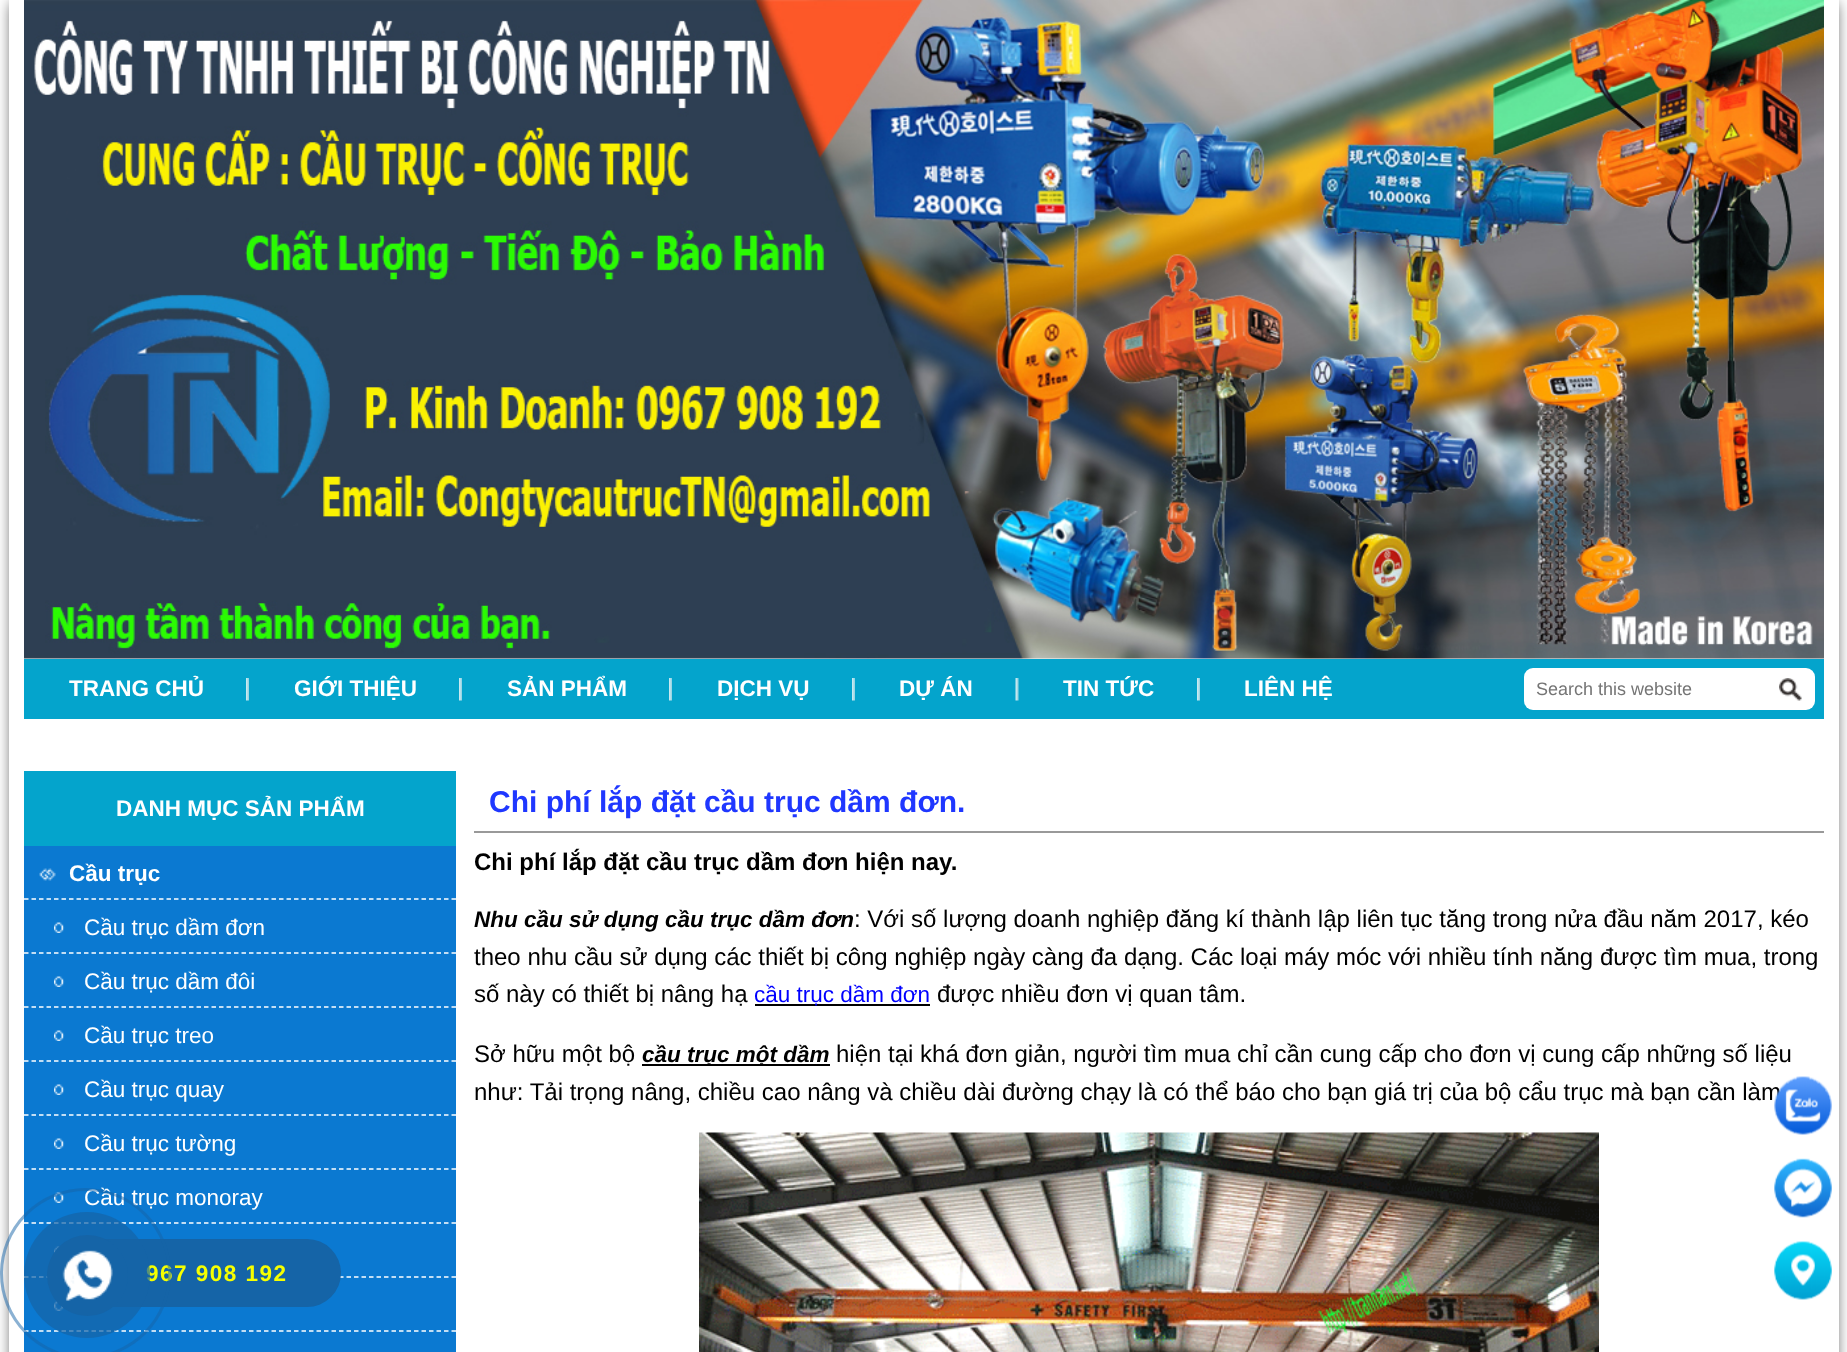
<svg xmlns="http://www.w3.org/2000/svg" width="1847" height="1352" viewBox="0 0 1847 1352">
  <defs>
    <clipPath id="clip1"><path d="M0 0H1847V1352H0ZM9 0H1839V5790H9Z" clip-rule="evenodd"/></clipPath>
  </defs>
  <rect width="100%" height="100%" fill="rgb(255,255,255)"/>
  <g clip-path="url(#clip1)">
    <rect x="12" y="3" width="1824" height="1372" fill="rgba(0,0,0,0.75)" filter="blur(7.5px)"/>
  </g>
  <rect x="24" y="659" width="1800" height="60" fill="rgb(4,164,204)"/>
  <image x="246" y="678" width="3" height="23" href="pic1.png"/>
  <text x="69" y="696" font-family="Liberation Sans" font-size="22.5" font-weight="bold" fill="rgb(255,255,255)">TRANG CHỦ</text>
  <image x="459" y="678" width="3" height="23" href="pic2.png"/>
  <text x="294" y="696" font-family="Liberation Sans" font-size="22.5" font-weight="bold" fill="rgb(255,255,255)">GIỚI THIỆU</text>
  <image x="669" y="678" width="3" height="23" href="pic1.png"/>
  <text x="507" y="696" font-family="Liberation Sans" font-size="22.5" font-weight="bold" fill="rgb(255,255,255)">SẢN PHẨM</text>
  <image x="852" y="678" width="3" height="23" href="pic1.png"/>
  <text x="717" y="696" font-family="Liberation Sans" font-size="22.5" font-weight="bold" fill="rgb(255,255,255)">DỊCH VỤ</text>
  <image x="1015" y="678" width="4" height="23" href="pic3.png"/>
  <text x="899" y="696" font-family="Liberation Sans" font-size="22.5" font-weight="bold" fill="rgb(255,255,255)">DỰ ÁN</text>
  <image x="1197" y="678" width="3" height="23" href="pic2.png"/>
  <g font-family="Liberation Sans" font-size="22.5" font-weight="bold" fill="rgb(255,255,255)">
    <text x="1063" y="696">TIN TỨC</text>
    <text x="1244" y="696">LIÊN HỆ</text>
  </g>
  <image x="24" y="0" width="1800" height="659" href="pic4.png"/>
  <rect x="1524" y="668" width="291" height="42" rx="9" fill="rgb(255,255,255)"/>
  <text x="1536" y="695" font-family="Liberation Sans" font-size="18" fill="rgb(117,117,117)">Search this website</text>
  <image x="1779" y="678" width="23" height="23" href="pic5.png"/>
  <rect x="24" y="771" width="432" height="75" fill="rgb(4,164,204)"/>
  <text x="116" y="816" font-family="Liberation Sans" font-size="22.5" font-weight="bold" fill="rgb(255,255,255)">DANH MỤC SẢN PHẨM</text>
  <rect x="24" y="846" width="432" height="506" fill="rgb(11,121,209)"/>
  <image x="39" y="868" width="17" height="13" href="pic6.png"/>
  <path d="M24 899H456" fill="none" stroke="rgb(255,255,255)" stroke-width="1.5" stroke-dasharray="4.5 3"/>
  <text x="69" y="881" font-family="Liberation Sans" font-size="22.5" font-weight="bold" fill="rgb(255,255,255)">Cầu trục</text>
  <image x="54" y="922" width="11" height="11" href="pic7.png"/>
  <path d="M24 953H456" fill="none" stroke="rgb(255,255,255)" stroke-width="1.5" stroke-dasharray="4.5 3"/>
  <text x="84" y="935" font-family="Liberation Sans" font-size="22.5" fill="rgb(255,255,255)">Cầu trục dầm đơn</text>
  <image x="54" y="976" width="11" height="11" href="pic7.png"/>
  <path d="M24 1007H456" fill="none" stroke="rgb(255,255,255)" stroke-width="1.5" stroke-dasharray="4.5 3"/>
  <text x="84" y="989" font-family="Liberation Sans" font-size="22.5" fill="rgb(255,255,255)">Cầu trục dầm đôi</text>
  <image x="54" y="1030" width="11" height="11" href="pic7.png"/>
  <path d="M24 1061H456" fill="none" stroke="rgb(255,255,255)" stroke-width="1.5" stroke-dasharray="4.5 3"/>
  <text x="84" y="1043" font-family="Liberation Sans" font-size="22.5" fill="rgb(255,255,255)">Cầu trục treo</text>
  <image x="54" y="1084" width="11" height="11" href="pic7.png"/>
  <path d="M24 1115H456" fill="none" stroke="rgb(255,255,255)" stroke-width="1.5" stroke-dasharray="4.5 3"/>
  <text x="84" y="1097" font-family="Liberation Sans" font-size="22.5" fill="rgb(255,255,255)">Cầu trục quay</text>
  <image x="54" y="1138" width="11" height="11" href="pic7.png"/>
  <path d="M24 1169H456" fill="none" stroke="rgb(255,255,255)" stroke-width="1.5" stroke-dasharray="4.5 3"/>
  <text x="84" y="1151" font-family="Liberation Sans" font-size="22.5" fill="rgb(255,255,255)">Cầu trục tường</text>
  <image x="54" y="1192" width="11" height="11" href="pic7.png"/>
  <path d="M24 1223H456" fill="none" stroke="rgb(255,255,255)" stroke-width="1.5" stroke-dasharray="4.5 3"/>
  <text x="84" y="1205" font-family="Liberation Sans" font-size="22.5" fill="rgb(255,255,255)">Cầu trục monoray</text>
  <image x="54" y="1246" width="6" height="7" href="pic8.png"/>
  <path d="M24 1277H456" fill="none" stroke="rgb(255,255,255)" stroke-width="1.5" stroke-dasharray="4.5 3"/>
  <image x="54" y="1300" width="10" height="11" href="pic9.png"/>
  <path d="M24 1331H456" fill="none" stroke="rgb(255,255,255)" stroke-width="1.5" stroke-dasharray="4.5 3"/>
  <rect x="474" y="831" width="1350" height="2" fill="rgb(153,153,153)"/>
  <text x="489" y="812" font-family="Liberation Sans" font-size="30" font-weight="bold" fill="rgb(31,55,255)">Chi phí lắp đặt cầu trục dầm đơn.</text>
  <text x="474" y="870" font-family="Liberation Sans" font-size="24" font-weight="bold" fill="rgb(0,0,0)">Chi phí lắp đặt cầu trục dầm đơn hiện nay.</text>
  <text x="474" y="927" font-family="Liberation Sans" font-size="22.5" font-weight="bold" font-style="italic" fill="rgb(0,0,0)">Nhu cầu sử dụng cầu trục dầm đơn</text>
  <g font-family="Liberation Sans" font-size="24" fill="rgb(0,0,0)">
    <text x="854" y="927">: Với số lượng doanh nghiệp đăng kí thành lập liên tục tăng trong nửa đầu năm 2017, kéo</text>
    <text>
      <tspan x="474" y="965">theo nhu cầu sử dụng các thiết bị công nghiệp ngày càng đa dạng. Các loại máy móc với nhiều tính năng được tìm mua, trong</tspan>
      <tspan x="474" y="1002">số này có thiết bị nâng hạ</tspan>
    </text>
  </g>
  <rect x="755" y="1004" width="175" height="2" fill="rgb(0,0,0)"/>
  <text x="754" y="1002" font-family="Liberation Sans" font-size="22.5" fill="rgb(0,0,255)">cầu trục dầm đơn</text>
  <g font-family="Liberation Sans" font-size="24" fill="rgb(0,0,0)">
    <text x="937" y="1002">được nhiều đơn vị quan tâm.</text>
    <text x="474" y="1062">Sở hữu một bộ</text>
  </g>
  <rect x="642" y="1064" width="188" height="2" fill="rgb(0,0,0)"/>
  <text x="642" y="1062" font-family="Liberation Sans" font-size="22.5" font-weight="bold" font-style="italic" fill="rgb(0,0,0)">cầu trục một dầm</text>
  <g font-family="Liberation Sans" font-size="24" fill="rgb(0,0,0)">
    <text x="836" y="1062">hiện tại khá đơn giản, người tìm mua chỉ cần cung cấp cho đơn vị cung cấp những số liệu</text>
    <text x="474" y="1100">như: Tải trọng nâng, chiều cao nâng và chiều dài đường chạy là có thể báo cho bạn giá trị của bộ cẩu trục mà bạn cần làm</text>
  </g>
  <image x="699" y="1132" width="900" height="220" href="pic10.png"/>
  <image x="1774" y="1076" width="58" height="59" href="pic11.png"/>
  <image x="1774" y="1158" width="58" height="60" href="pic12.png"/>
  <image x="1774" y="1241" width="58" height="59" href="pic13.png"/>
  <rect x="63" y="1239" width="278" height="68" rx="34" fill="rgb(21,100,167)"/>
  <text x="146" y="1281" font-family="Liberation Sans" font-size="22.5" font-weight="bold" letter-spacing="1.5" fill="rgb(246,255,0)">967 908 192</text>
  <circle cx="85.5" cy="1273.5" r="84" fill="none" stroke="rgba(21,100,167,0.5)" stroke-width="3"/>
  <circle cx="87" cy="1275" r="63" fill="rgba(21,100,167,0.7)"/>
  <circle cx="87.5" cy="1275.5" r="40.5" fill="rgb(21,100,167)"/>
  <image x="62" y="1250" width="51" height="51" href="pic14.png"/>
</svg>
